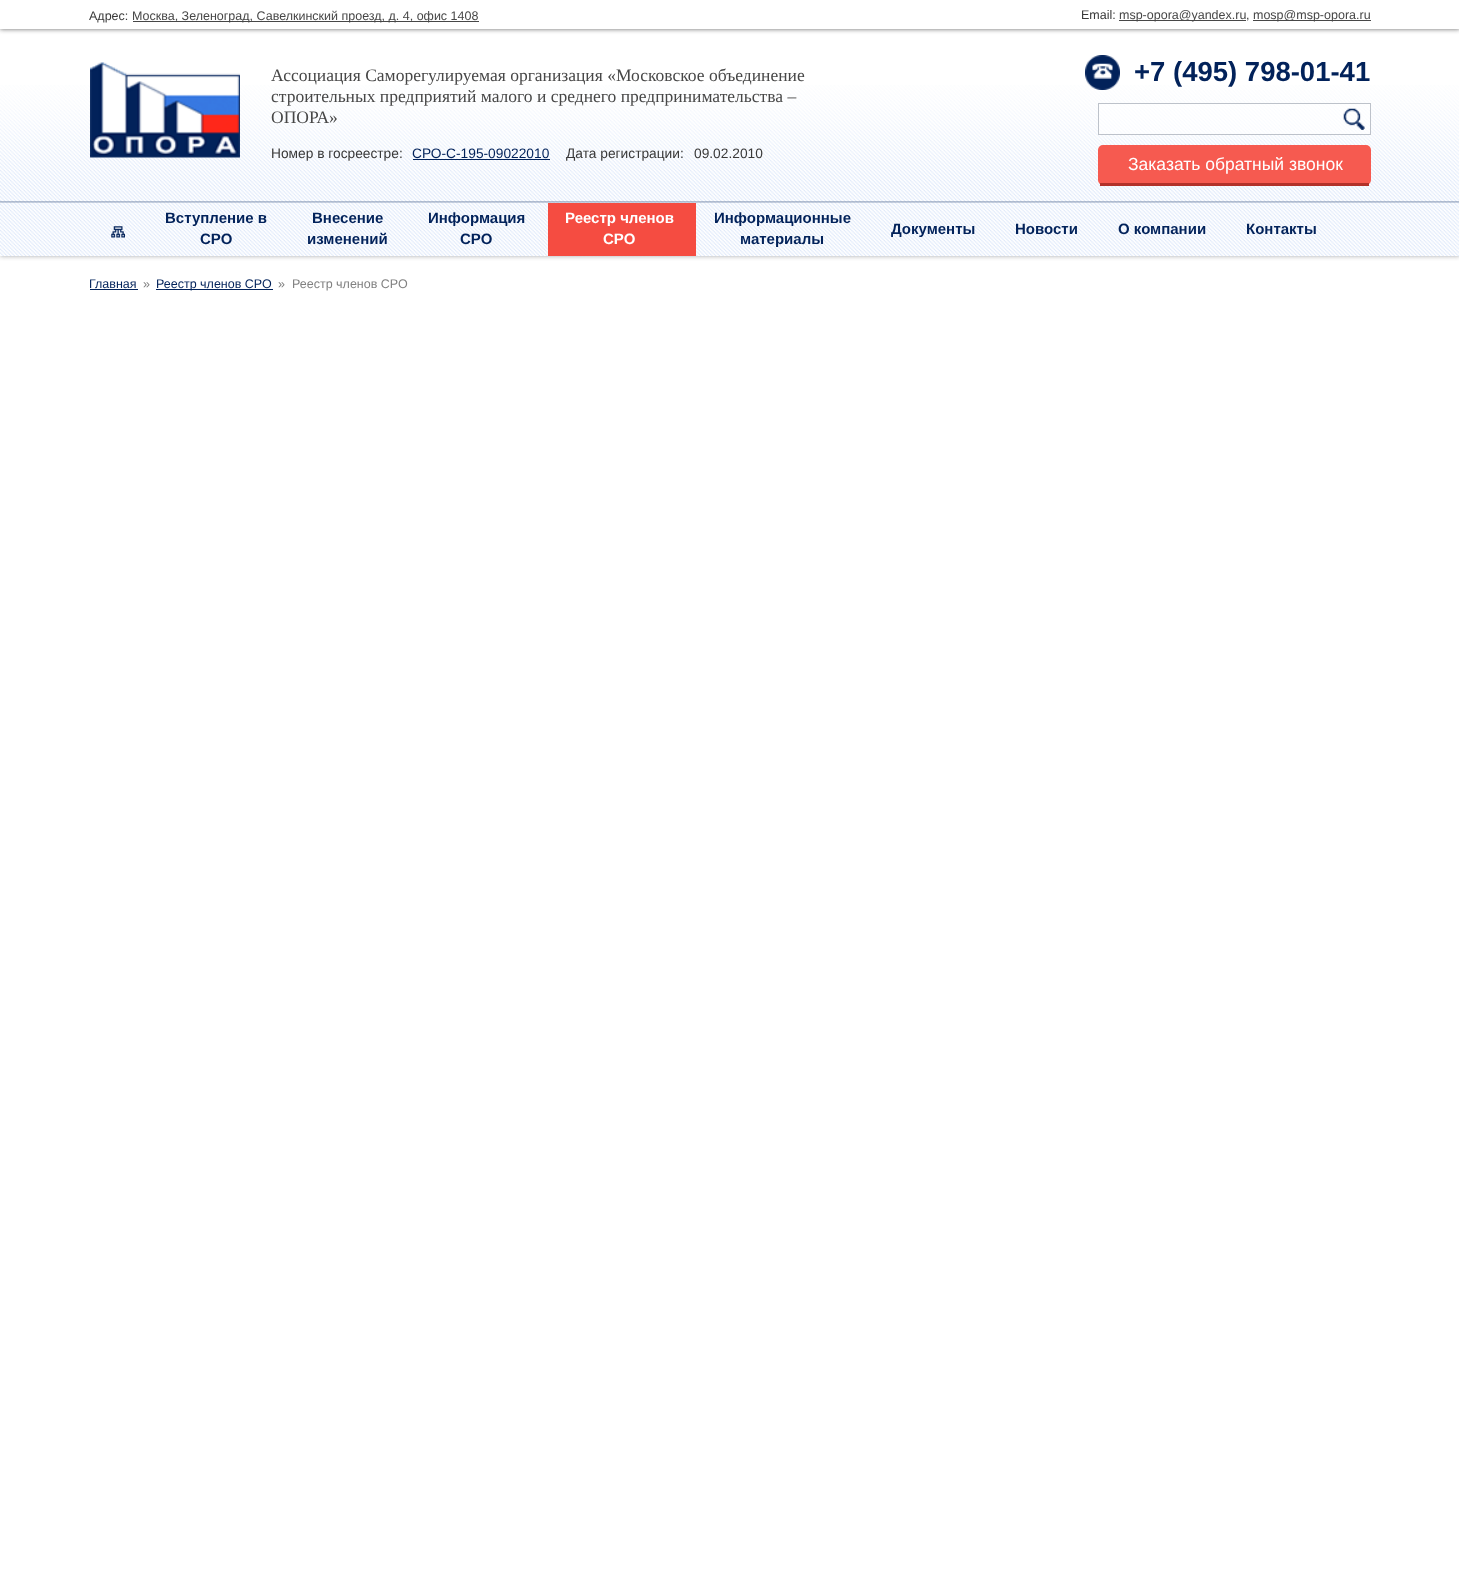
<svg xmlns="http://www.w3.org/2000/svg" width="1459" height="1569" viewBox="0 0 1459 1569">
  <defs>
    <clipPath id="clip1"><rect x="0" y="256" width="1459" height="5"/></clipPath>
    <clipPath id="clip2"><path d="M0 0H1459V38H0ZM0 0H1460V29H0Z" clip-rule="evenodd"/></clipPath>
  </defs>
  <rect width="100%" height="100%" fill="rgb(255,255,255)"/>
  <g clip-path="url(#clip1)">
    <rect x="0" y="0" width="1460" height="256" fill="rgb(170,170,170)" filter="blur(2.5px)"/>
  </g>
  <image x="0" y="85" width="1459" height="172" href="pic1.png"/>
  <g clip-path="url(#clip2)">
    <rect x="0" y="0" width="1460" height="29" fill="rgb(102,102,102)" filter="blur(2.5px)"/>
  </g>
  <text x="89" y="20" font-family="Liberation Sans" font-size="12.5" fill="rgb(57,57,57)">Адрес:</text>
  <rect x="133" y="21" width="346" height="1" fill="rgb(71,71,71)"/>
  <text x="132" y="20" font-family="Liberation Sans" font-size="12.5" fill="rgb(71,71,71)">Москва, Зеленоград, Савелкинский проезд, д. 4, офис 1408</text>
  <text x="1081" y="19" font-family="Liberation Sans" font-size="12.5" fill="rgb(57,57,57)">Email:</text>
  <rect x="1119" y="20" width="127" height="1" fill="rgb(71,71,71)"/>
  <text x="1119" y="19" font-family="Liberation Sans" font-size="12.5" fill="rgb(71,71,71)">msp-opora@yandex.ru</text>
  <text x="1246" y="19" font-family="Liberation Sans" font-size="12.5" fill="rgb(57,57,57)">,</text>
  <rect x="1253" y="20" width="118" height="1" fill="rgb(71,71,71)"/>
  <text x="1253" y="19" font-family="Liberation Sans" font-size="12.5" fill="rgb(71,71,71)">mosp@msp-opora.ru</text>
  <image x="90" y="62" width="150" height="96" href="pic2.png"/>
  <g font-family="Liberation Serif" font-size="17.5" fill="rgb(71,71,71)">
    <text>
      <tspan x="271" y="81">Ассоциация Саморегулируемая организация «Московское объединение</tspan>
      <tspan x="271" y="102">строительных предприятий малого и среднего предпринимательства –</tspan>
      <tspan x="271" y="123">ОПОРА»</tspan>
    </text>
  </g>
  <image x="1085" y="55" width="35" height="35" href="pic3.png"/>
  <text x="1134" y="81" font-family="Liberation Sans" font-size="27.5" font-weight="bold" fill="rgb(2,34,90)">+7 (495) 798-01-41</text>
  <rect x="1098.5" y="103.5" width="272" height="31" fill="rgba(255,255,255,0.5)" stroke="rgb(189,194,202)"/>
  <image x="1343" y="108" width="22" height="22" href="pic4.png"/>
  <text x="271" y="158" font-family="Liberation Sans" font-size="13.75" fill="rgb(57,57,57)">Номер в госреестре:</text>
  <text x="412" y="158" font-family="Liberation Sans" font-size="13.75" fill="rgb(2,34,90)">СРО-С-195-09022010</text>
  <rect x="413" y="159" width="137" height="1" fill="rgb(2,34,90)"/>
  <g font-family="Liberation Sans" font-size="13.75" fill="rgb(57,57,57)">
    <text x="566" y="158">Дата регистрации:</text>
    <text x="694" y="158">09.02.2010</text>
  </g>
  <rect x="1098" y="145" width="273" height="40" rx="5" fill="rgb(246,90,80)"/>
  <rect x="1100" y="183" width="269" height="3" fill="rgb(178,49,41)"/>
  <text x="1128" y="170" font-family="Liberation Sans" font-size="17.5" fill="rgb(255,255,255)">Заказать обратный звонок</text>
  <image x="111" y="226" width="14" height="12" href="pic5.png"/>
  <g font-family="Liberation Sans" font-size="15" font-weight="bold" fill="rgb(2,34,90)">
    <text x="165" y="223">Вступление в</text>
    <text x="200" y="244">СРО</text>
    <text x="312" y="223">Внесение</text>
    <text x="307" y="244">изменений</text>
    <text x="428" y="223">Информация</text>
    <text x="460" y="244">СРО</text>
  </g>
  <rect x="548" y="203" width="148" height="53" fill="rgb(245,76,65)"/>
  <g font-family="Liberation Sans" font-size="15" font-weight="bold" fill="rgb(255,255,255)">
    <text x="565" y="223">Реестр членов</text>
    <text x="603" y="244">СРО</text>
  </g>
  <g font-family="Liberation Sans" font-size="15" font-weight="bold" fill="rgb(2,34,90)">
    <text x="714" y="223">Информационные</text>
    <text x="740" y="244">материалы</text>
    <text x="891" y="234">Документы</text>
    <text x="1015" y="234">Новости</text>
    <text x="1118" y="234">О компании</text>
    <text x="1246" y="234">Контакты</text>
  </g>
  <text x="89" y="288" font-family="Liberation Sans" font-size="12.5" fill="rgb(2,34,90)">Главная</text>
  <rect x="90" y="289" width="48" height="1" fill="rgb(2,34,90)"/>
  <text x="143" y="288" font-family="Liberation Sans" font-size="12.5" fill="rgb(129,129,129)">»</text>
  <rect x="156" y="289" width="117" height="1" fill="rgb(2,34,90)"/>
  <text x="156" y="288" font-family="Liberation Sans" font-size="12.5" fill="rgb(2,34,90)">Реестр членов СРО</text>
  <g font-family="Liberation Sans" font-size="12.5" fill="rgb(129,129,129)">
    <text x="278" y="288">»</text>
    <text x="292" y="288">Реестр членов СРО</text>
  </g>
</svg>
